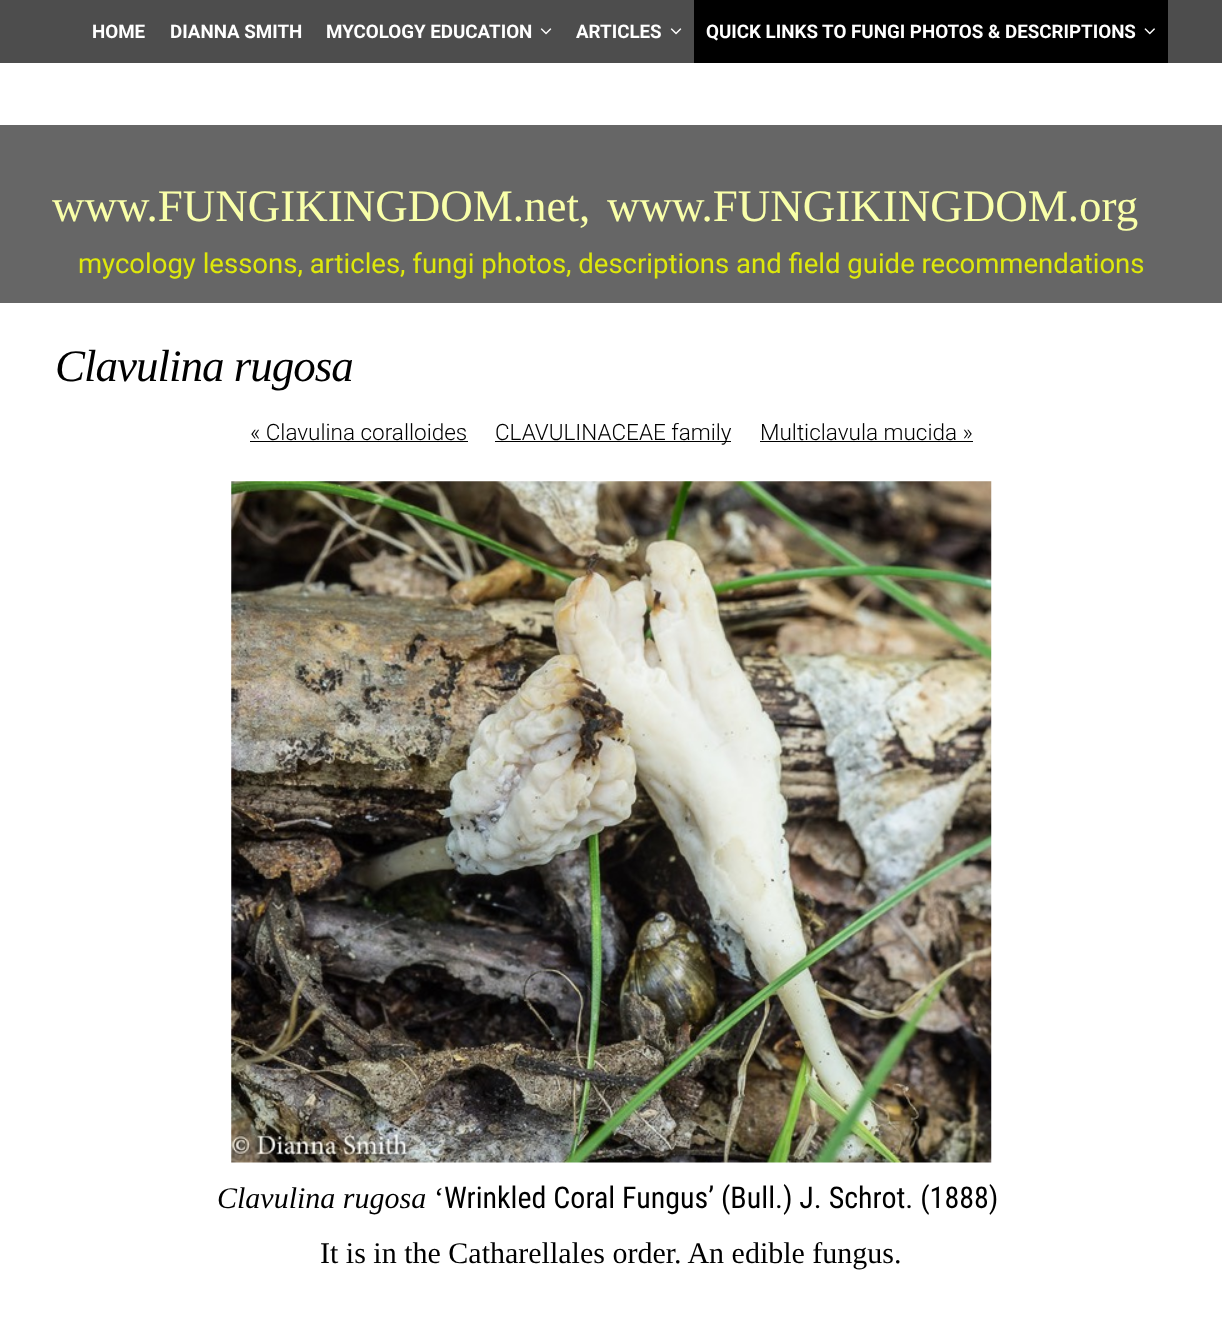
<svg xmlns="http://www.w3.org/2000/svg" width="1222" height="1340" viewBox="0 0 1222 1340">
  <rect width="100%" height="100%" fill="rgb(255,255,255)"/>
  <rect x="0" y="0" width="1222" height="63" fill="rgb(77,77,77)"/>
  <g font-family="Roboto" font-size="18.75" font-weight="bold" fill="rgb(255,255,255)">
    <text x="92" y="38">HOME</text>
    <text x="170" y="38">DIANNA SMITH</text>
    <text x="326" y="38">MYCOLOGY EDUCATION</text>
  </g>
  <image x="540" y="28" width="12" height="7" href="pic1.png"/>
  <text x="576" y="38" font-family="Roboto" font-size="18.75" font-weight="bold" fill="rgb(255,255,255)">ARTICLES</text>
  <image x="670" y="28" width="12" height="7" href="pic1.png"/>
  <rect x="694" y="0" width="474" height="63" fill="rgb(0,0,0)"/>
  <text x="706" y="38" font-family="Roboto" font-size="18.75" font-weight="bold" fill="rgb(255,255,255)">QUICK LINKS TO FUNGI PHOTOS &amp; DESCRIPTIONS</text>
  <image x="1144" y="28" width="11" height="7" href="pic2.png"/>
  <rect x="0" y="125" width="1222" height="178" fill="rgb(102,102,102)"/>
  <g font-family="Liberation Serif" font-size="45" fill="rgb(249,255,169)">
    <text x="52" y="221">www.FUNGIKINGDOM.net,</text>
    <text x="607" y="221">www.FUNGIKINGDOM.org</text>
  </g>
  <text x="78" y="273" font-family="Roboto" font-size="27.5" fill="rgb(222,232,11)">mycology lessons, articles, fungi photos, descriptions and field guide recommendations</text>
  <text x="55" y="381" font-family="Liberation Serif" font-size="45" font-style="italic" letter-spacing="-1" fill="rgb(0,0,0)">Clavulina rugosa</text>
  <text x="250" y="440" font-family="Roboto" font-size="22.5" font-weight="300" fill="rgb(0,0,0)">« Clavulina coralloides</text>
  <rect x="250" y="441" width="218" height="1" fill="rgb(0,0,0)"/>
  <rect x="495" y="441" width="236" height="1" fill="rgb(0,0,0)"/>
  <g font-family="Roboto" font-size="22.5" font-weight="300" fill="rgb(0,0,0)">
    <text x="495" y="440">CLAVULINACEAE family</text>
    <text x="760" y="440">Multiclavula mucida »</text>
  </g>
  <rect x="760" y="441" width="213" height="1" fill="rgb(0,0,0)"/>
  <image x="231" y="481" width="761" height="682" href="pic3.png"/>
  <text x="217" y="1208" font-family="Liberation Serif" font-size="30" font-style="italic" fill="rgb(0,0,0)">Clavulina rugosa</text>
  <text x="434" y="1208" font-family="Liberation Serif" font-size="30" fill="rgb(0,0,0)">‘</text>
  <text x="444" y="1208" font-family="Roboto Condensed" font-size="30" fill="rgb(0,0,0)">Wrinkled Coral Fungus’ (Bull.) J. Schrot. (1888)</text>
  <text x="320" y="1263" font-family="Liberation Serif" font-size="30" fill="rgb(0,0,0)">It is in the Catharellales order. An edible fungus.</text>
</svg>
